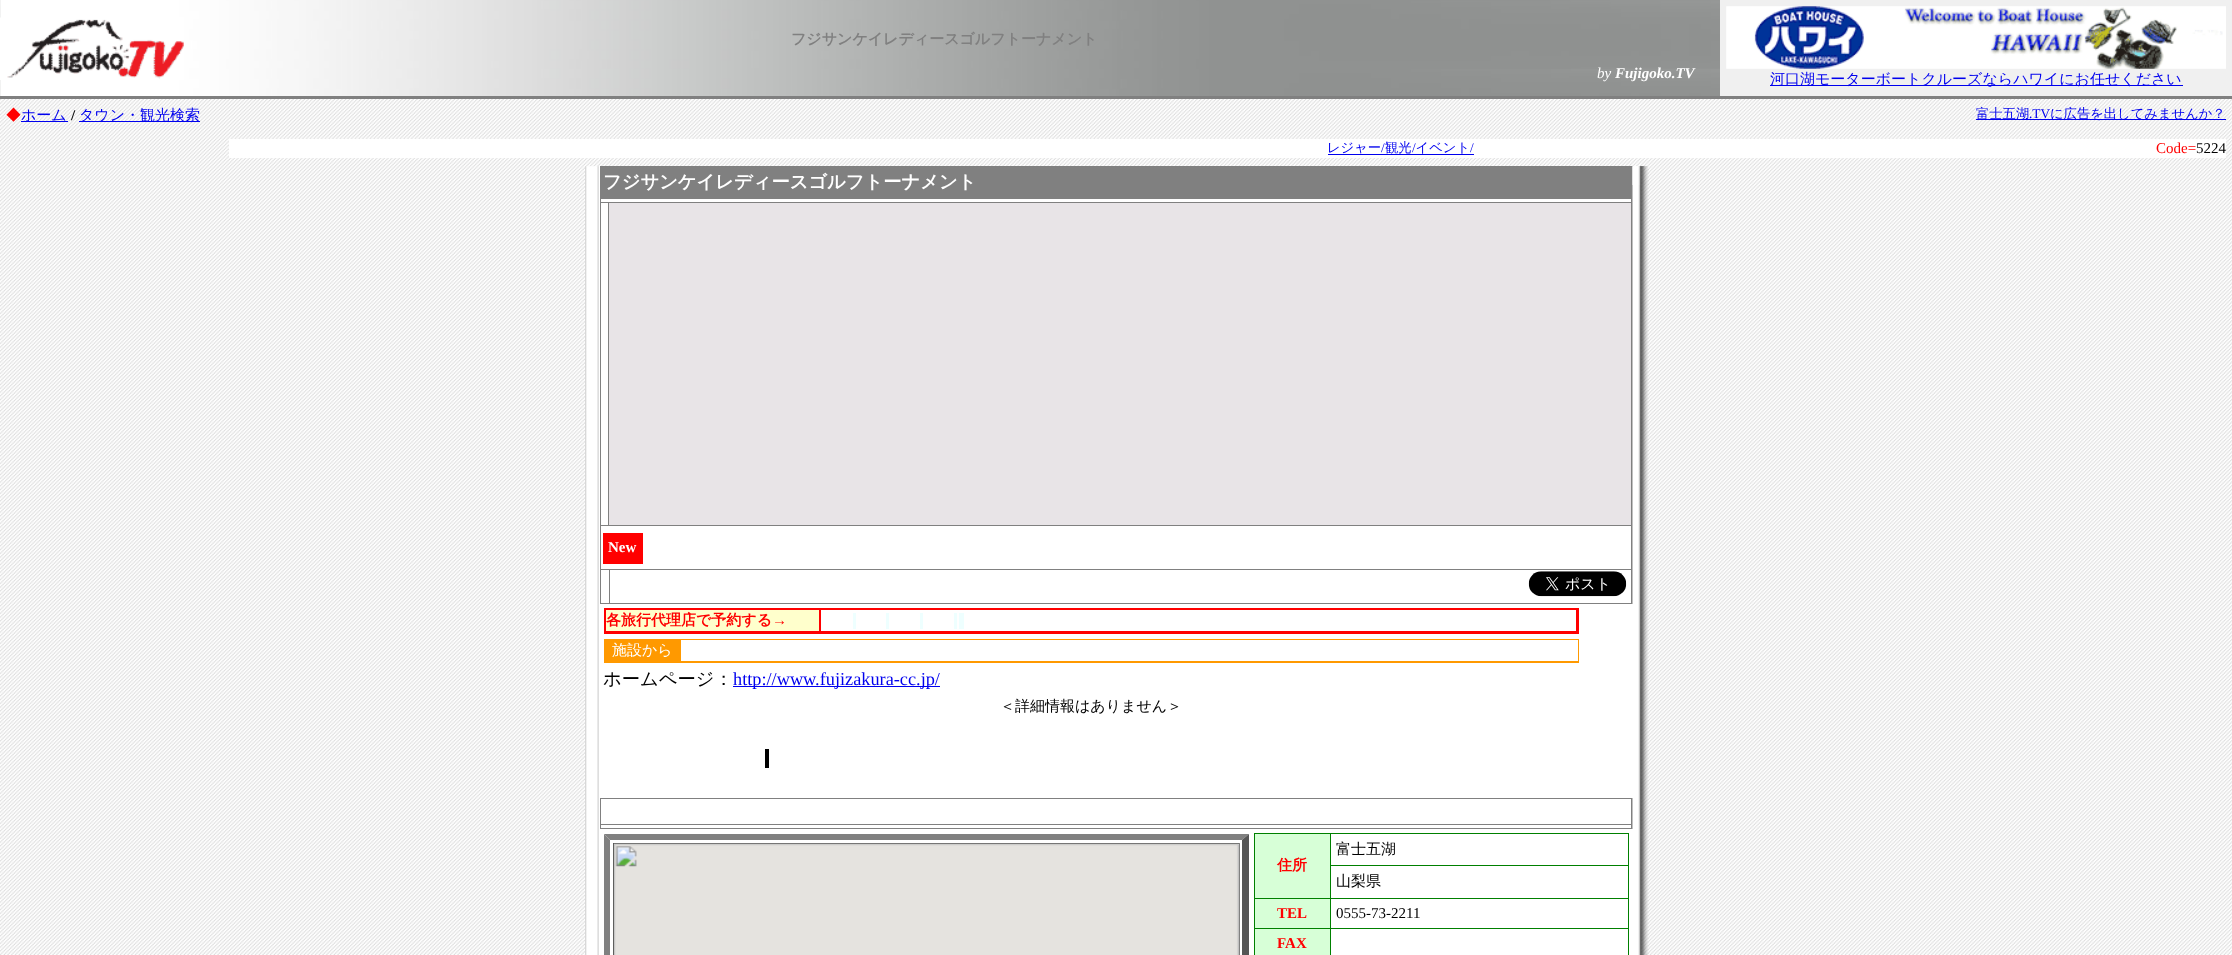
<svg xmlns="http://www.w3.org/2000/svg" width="2232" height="955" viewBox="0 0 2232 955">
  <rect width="100%" height="100%" fill="rgb(255,255,255)"/>
  <image x="0" y="99" width="2232" height="856" href="pic1.png"/>
  <image x="0" y="0" width="1720" height="96" href="pic2.png"/>
  <image x="0" y="17" width="184" height="63" href="pic3.png"/>
  <text x="791" y="44" font-family="WenQuanYi Zen Hei" font-size="15" font-weight="bold" fill="rgb(128,128,128)">フジサンケイレディースゴルフトーナメント</text>
  <rect x="1720" y="0" width="512" height="96" fill="rgb(240,240,240)"/>
  <image x="1726" y="6" width="500" height="63" href="pic4.png"/>
  <rect x="1770" y="85" width="413" height="1" fill="rgb(0,0,238)"/>
  <text x="1770" y="84" font-family="WenQuanYi Zen Hei" font-size="15" font-weight="500" fill="rgb(0,0,238)">河口湖モーターボートクルーズならハワイにお任せください</text>
  <text x="1597" y="78" font-family="Liberation Serif" font-size="15" font-style="italic" fill="rgb(255,255,255)">by</text>
  <text x="1615" y="78" font-family="Liberation Serif" font-size="15" font-weight="bold" font-style="italic" fill="rgb(255,255,255)">Fujigoko.TV</text>
  <rect x="0" y="96" width="2232" height="3" fill="rgb(128,128,128)"/>
  <text x="6" y="120" font-family="WenQuanYi Zen Hei" font-size="15" font-weight="500" fill="rgb(255,0,0)">◆</text>
  <rect x="21" y="121" width="47" height="1" fill="rgb(0,0,238)"/>
  <text x="21" y="120" font-family="WenQuanYi Zen Hei" font-size="15" font-weight="500" fill="rgb(0,0,238)">ホーム</text>
  <text x="71" y="120" font-family="Liberation Serif" font-size="15" font-weight="bold" fill="rgb(0,0,0)">/</text>
  <rect x="79" y="121" width="121" height="1" fill="rgb(0,0,238)"/>
  <text x="79" y="120" font-family="WenQuanYi Zen Hei" font-size="15" font-weight="500" fill="rgb(0,0,238)">タウン・観光検索</text>
  <rect x="1976" y="119" width="250" height="1" fill="rgb(0,0,238)"/>
  <text x="1976" y="118" font-family="WenQuanYi Zen Hei" font-size="13.3" font-weight="500" fill="rgb(0,0,238)">富士五湖</text>
  <text x="2029" y="118" font-family="Liberation Serif" font-size="13.3" fill="rgb(0,0,238)">.TV</text>
  <text x="2050" y="118" font-family="WenQuanYi Zen Hei" font-size="13.3" font-weight="500" fill="rgb(0,0,238)">に広告を出してみませんか？</text>
  <rect x="229" y="139" width="1997" height="19" fill="rgb(255,255,255)"/>
  <text x="1327" y="152" font-family="WenQuanYi Zen Hei" font-size="13.3" font-weight="500" fill="rgb(0,0,238)">レジャー</text>
  <rect x="1328" y="154" width="146" height="1" fill="rgb(0,0,238)"/>
  <text x="1381" y="152" font-family="Liberation Serif" font-size="13.3" fill="rgb(0,0,238)">/</text>
  <text x="1385" y="152" font-family="WenQuanYi Zen Hei" font-size="13.3" font-weight="500" fill="rgb(0,0,238)">観光 イベント</text>
  <g font-family="Liberation Serif" font-size="13.3" fill="rgb(0,0,238)">
    <text x="1412" y="152">/</text>
    <text x="1470" y="152">/</text>
  </g>
  <text x="2156" y="153" font-family="Liberation Serif" font-size="15" fill="rgb(255,0,0)">Code=</text>
  <text x="2196" y="153" font-family="Liberation Serif" font-size="15" fill="rgb(0,0,0)">5224</text>
  <image x="585" y="166" width="15" height="789" href="pic5.png"/>
  <rect x="600" y="604" width="1033" height="351" fill="rgb(255,255,255)"/>
  <rect x="600" y="166" width="1033" height="438" fill="rgb(128,128,128)"/>
  <text x="603" y="188" font-family="WenQuanYi Zen Hei" font-size="18.3" font-weight="bold" fill="rgb(255,255,255)">フジサンケイレディースゴルフトーナメント</text>
  <rect x="601" y="199" width="1030" height="3" fill="rgb(255,255,255)"/>
  <rect x="601" y="203" width="7" height="322" fill="rgb(255,255,255)"/>
  <rect x="609" y="203" width="1022" height="322" fill="rgb(232,228,231)"/>
  <rect x="601" y="526" width="1030" height="43" fill="rgb(255,255,255)"/>
  <rect x="603" y="533" width="40" height="31" fill="rgb(255,0,0)"/>
  <text x="608" y="552" font-family="Liberation Serif" font-size="15" font-weight="bold" fill="rgb(255,255,255)">New</text>
  <rect x="601" y="570" width="8" height="33" fill="rgb(255,255,255)"/>
  <rect x="610" y="570" width="1021" height="33" fill="rgb(255,255,255)"/>
  <image x="1528" y="571" width="99" height="26" href="pic6.png"/>
  <rect x="604" y="608" width="975" height="26" fill="rgb(255,0,0)"/>
  <rect x="606" y="610" width="213" height="21" fill="rgb(255,255,204)"/>
  <text x="606" y="625" font-family="WenQuanYi Zen Hei" font-size="15" font-weight="bold" fill="rgb(255,0,0)">各旅行代理店で予約する</text>
  <text x="772" y="625" font-family="Liberation Serif" font-size="15" font-weight="bold" fill="rgb(255,0,0)">→</text>
  <rect x="821" y="610" width="755" height="21" fill="rgb(255,255,255)"/>
  <rect x="853" y="613" width="3" height="16" fill="rgb(238,255,255)"/>
  <rect x="886" y="613" width="3" height="16" fill="rgb(238,255,255)"/>
  <rect x="920" y="613" width="3" height="16" fill="rgb(238,255,255)"/>
  <rect x="954" y="613" width="3" height="16" fill="rgb(238,255,255)"/>
  <rect x="959" y="613" width="5" height="16" fill="rgb(238,255,255)"/>
  <rect x="604" y="639" width="975" height="24" fill="rgb(255,153,0)"/>
  <text x="612" y="655" font-family="WenQuanYi Zen Hei" font-size="15" font-weight="500" fill="rgb(255,255,255)">施設から</text>
  <rect x="681" y="640" width="897" height="21" fill="rgb(255,255,255)"/>
  <text x="603" y="685" font-family="WenQuanYi Zen Hei" font-size="18.3" font-weight="500" fill="rgb(0,0,0)">ホームページ：</text>
  <rect x="733" y="686" width="207" height="1" fill="rgb(0,0,238)"/>
  <text x="733" y="685" font-family="Liberation Serif" font-size="18.3" fill="rgb(0,0,238)">http://www.fujizakura-cc.jp/</text>
  <text x="1000" y="711" font-family="WenQuanYi Zen Hei" font-size="15" font-weight="500" fill="rgb(0,0,0)">＜詳細情報はありません＞</text>
  <rect x="765" y="749" width="4" height="19" fill="rgb(0,0,0)"/>
  <rect x="600" y="798" width="1033" height="31" fill="rgb(128,128,128)"/>
  <rect x="601" y="799" width="1030" height="25" fill="rgb(255,255,255)"/>
  <rect x="601" y="825" width="1030" height="3" fill="rgb(255,255,255)"/>
  <path d="M604 834H1249L1242 840H610Z" fill="rgb(128,128,128)"/>
  <path d="M1249 834V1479L1242 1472V840Z" fill="rgb(85,85,85)"/>
  <path d="M604 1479V834L610 840V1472Z" fill="rgb(128,128,128)"/>
  <rect x="613" y="843" width="627" height="1" fill="rgb(85,85,85)"/>
  <rect x="1239" y="843" width="1" height="112" fill="rgb(128,128,128)"/>
  <rect x="613" y="843" width="1" height="112" fill="rgb(85,85,85)"/>
  <image x="613" y="843" width="626" height="112" href="pic7.png"/>
  <rect x="1254" y="833" width="375" height="122" fill="rgb(0,128,0)"/>
  <rect x="1331" y="834" width="297" height="31" fill="rgb(255,255,255)"/>
  <text x="1336" y="854" font-family="WenQuanYi Zen Hei" font-size="15" font-weight="500" fill="rgb(0,0,0)">富士五湖</text>
  <rect x="1255" y="834" width="75" height="64" fill="rgb(215,255,215)"/>
  <text x="1277" y="870" font-family="WenQuanYi Zen Hei" font-size="15" font-weight="bold" fill="rgb(255,0,0)">住所</text>
  <rect x="1331" y="866" width="297" height="32" fill="rgb(255,255,255)"/>
  <text x="1336" y="886" font-family="WenQuanYi Zen Hei" font-size="15" font-weight="500" fill="rgb(0,0,0)">山梨県</text>
  <rect x="1255" y="899" width="75" height="29" fill="rgb(215,255,215)"/>
  <text x="1277" y="918" font-family="Liberation Serif" font-size="15" font-weight="bold" fill="rgb(255,0,0)">TEL</text>
  <rect x="1331" y="899" width="297" height="29" fill="rgb(255,255,255)"/>
  <text x="1336" y="918" font-family="Liberation Serif" font-size="15" fill="rgb(0,0,0)">0555-73-2211</text>
  <rect x="1255" y="929" width="75" height="26" fill="rgb(215,255,215)"/>
  <text x="1277" y="948" font-family="Liberation Serif" font-size="15" font-weight="bold" fill="rgb(255,0,0)">FAX</text>
  <rect x="1331" y="929" width="297" height="26" fill="rgb(255,255,255)"/>
  <image x="1632" y="166" width="17" height="789" href="pic8.png"/>
  <image x="1632" y="166" width="17" height="19" href="pic9.png"/>
</svg>
